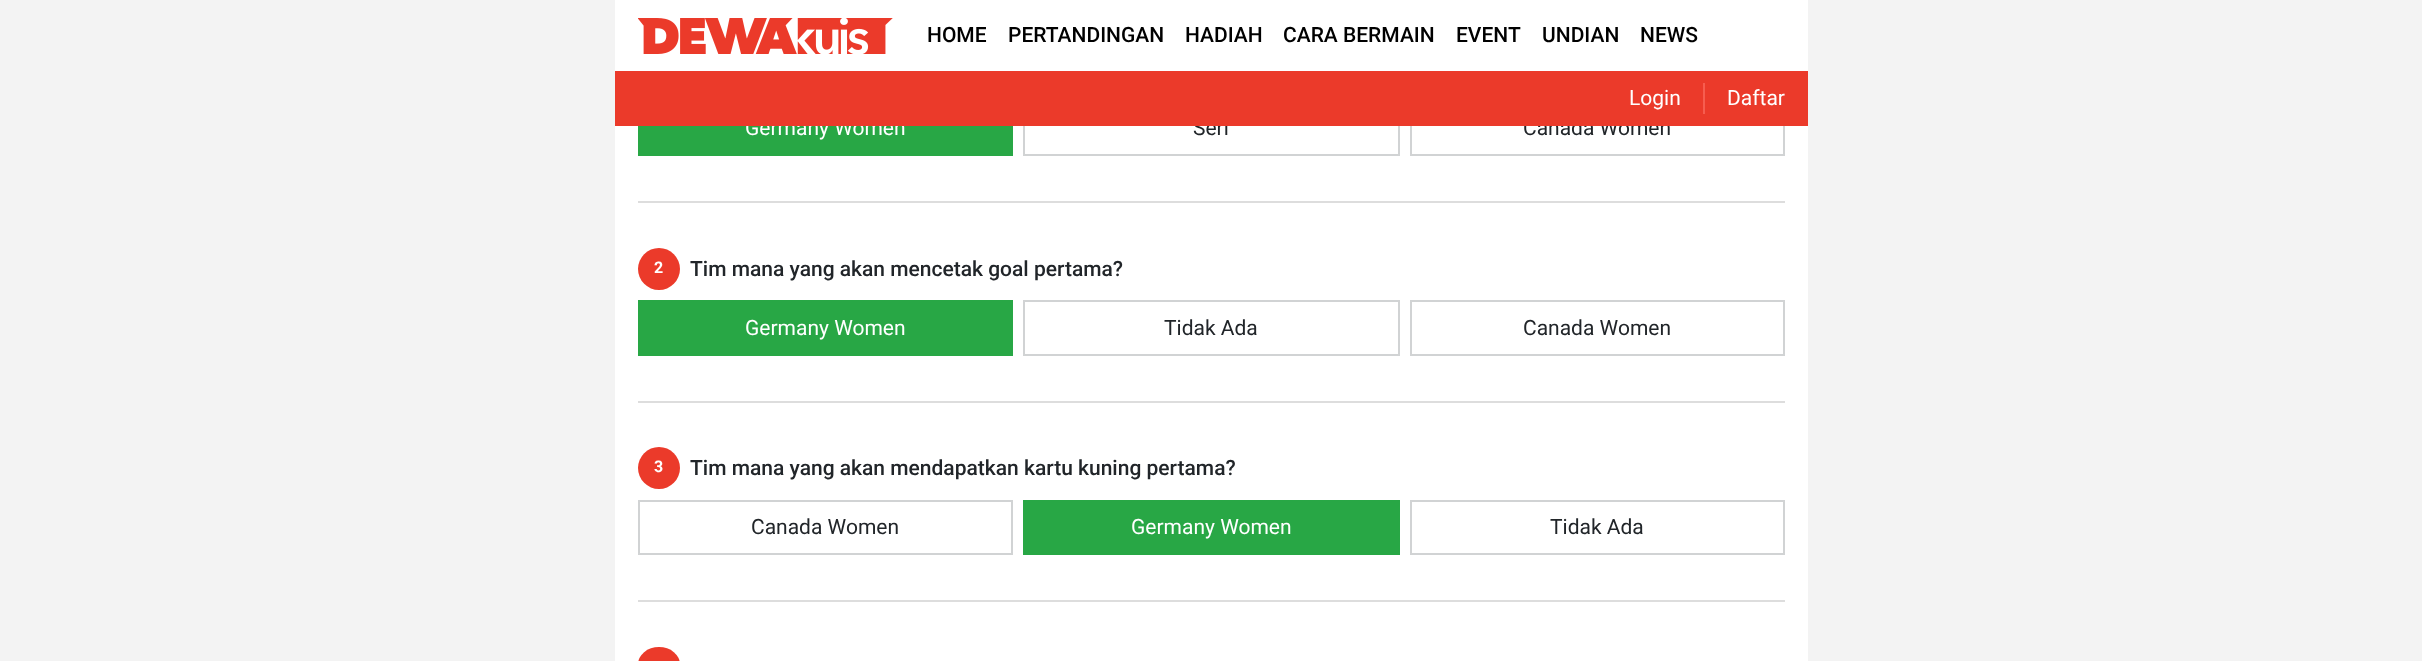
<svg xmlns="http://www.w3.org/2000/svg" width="2422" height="661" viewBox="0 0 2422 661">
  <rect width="100%" height="100%" fill="rgb(243,243,243)"/>
  <rect x="615" y="0" width="1193" height="71" fill="rgb(255,255,255)"/>
  <image x="638" y="18" width="255" height="36" href="pic1.png"/>
  <g font-family="Roboto" font-size="21" font-weight="500" fill="rgb(0,0,0)">
    <text x="927" y="42">HOME</text>
    <text x="1008" y="42">PERTANDINGAN</text>
    <text x="1185" y="42">HADIAH</text>
    <text x="1283" y="42">CARA BERMAIN</text>
    <text x="1456" y="42">EVENT</text>
    <text x="1542" y="42">UNDIAN</text>
    <text x="1640" y="42">NEWS</text>
  </g>
  <rect x="615" y="126" width="1193" height="535" fill="rgb(255,255,255)"/>
  <rect x="638" y="126" width="375" height="30" fill="rgb(40,167,69)"/>
  <text x="745" y="135" font-family="Roboto" font-size="21" fill="rgb(255,255,255)">Germany Women</text>
  <rect x="1024" y="102" width="375" height="53" fill="none" stroke="rgb(209,211,212)" stroke-width="2"/>
  <text x="1193" y="135" font-family="Roboto" font-size="21" fill="rgb(33,37,41)">Seri</text>
  <rect x="1411" y="102" width="373" height="53" fill="none" stroke="rgb(209,211,212)" stroke-width="2"/>
  <text x="1523" y="135" font-family="Roboto" font-size="21" fill="rgb(33,37,41)">Canada Women</text>
  <rect x="615" y="71" width="1193" height="55" fill="rgb(235,58,42)"/>
  <rect x="1703" y="83" width="2" height="31" fill="rgb(246,93,79)"/>
  <g font-family="Roboto" font-size="21" fill="rgb(255,255,255)">
    <text x="1629" y="105">Login</text>
    <text x="1727" y="105">Daftar</text>
  </g>
  <rect x="638" y="201" width="1147" height="2" fill="rgb(221,221,221)"/>
  <rect x="638" y="401" width="1147" height="2" fill="rgb(221,221,221)"/>
  <circle cx="659" cy="269" r="21" fill="rgb(235,58,42)"/>
  <text x="654" y="273" font-family="Roboto" font-size="16" font-weight="bold" fill="rgb(255,255,255)">2</text>
  <text x="690" y="276" font-family="Roboto" font-size="21" font-weight="500" fill="rgb(33,37,41)">Tim mana yang akan mencetak goal pertama?</text>
  <rect x="638" y="300" width="375" height="56" fill="rgb(40,167,69)"/>
  <text x="745" y="335" font-family="Roboto" font-size="21" fill="rgb(255,255,255)">Germany Women</text>
  <rect x="1024" y="301" width="375" height="54" fill="none" stroke="rgb(209,211,212)" stroke-width="2"/>
  <text x="1164" y="335" font-family="Roboto" font-size="21" fill="rgb(33,37,41)">Tidak Ada</text>
  <rect x="1411" y="301" width="373" height="54" fill="none" stroke="rgb(209,211,212)" stroke-width="2"/>
  <text x="1523" y="335" font-family="Roboto" font-size="21" fill="rgb(33,37,41)">Canada Women</text>
  <rect x="638" y="600" width="1147" height="2" fill="rgb(221,221,221)"/>
  <circle cx="659" cy="468" r="21" fill="rgb(235,58,42)"/>
  <text x="654" y="472" font-family="Roboto" font-size="16" font-weight="bold" fill="rgb(255,255,255)">3</text>
  <text x="690" y="475" font-family="Roboto" font-size="21" font-weight="500" fill="rgb(33,37,41)">Tim mana yang akan mendapatkan kartu kuning pertama?</text>
  <rect x="639" y="501" width="373" height="53" fill="none" stroke="rgb(209,211,212)" stroke-width="2"/>
  <text x="751" y="534" font-family="Roboto" font-size="21" fill="rgb(33,37,41)">Canada Women</text>
  <rect x="1023" y="500" width="377" height="55" fill="rgb(40,167,69)"/>
  <text x="1131" y="534" font-family="Roboto" font-size="21" fill="rgb(255,255,255)">Germany Women</text>
  <rect x="1411" y="501" width="373" height="53" fill="none" stroke="rgb(209,211,212)" stroke-width="2"/>
  <text x="1550" y="534" font-family="Roboto" font-size="21" fill="rgb(33,37,41)">Tidak Ada</text>
  <rect x="638" y="647" width="42" height="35" rx="21" fill="rgb(235,58,42)"/>
</svg>
